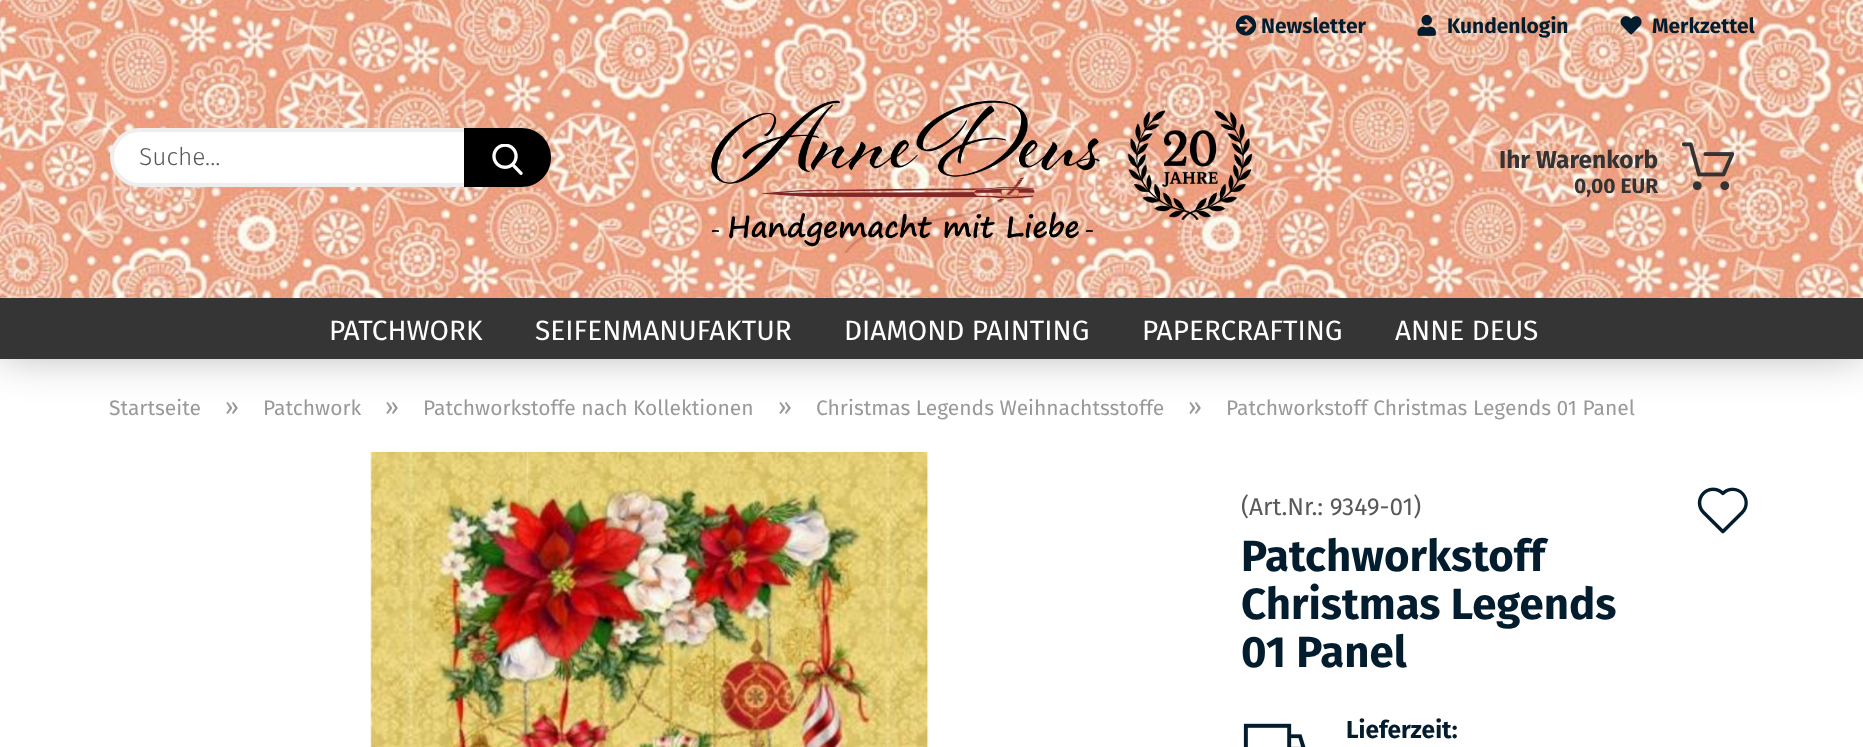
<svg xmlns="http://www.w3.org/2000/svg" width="1863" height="747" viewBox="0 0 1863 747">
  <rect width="100%" height="100%" fill="rgb(255,255,255)"/>
  <rect x="0" y="0" width="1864" height="355" rx="4" fill="rgba(0,0,0,0.3)" filter="blur(22px)"/>
  <image x="0" y="0" width="1863" height="298" href="pic1.png"/>
  <image x="1235" y="15" width="22" height="21" href="pic2.png"/>
  <text x="1261" y="33" font-family="Fira Sans" font-size="21" font-weight="bold" fill="rgb(3,29,46)">Newsletter</text>
  <image x="1417" y="14" width="19" height="22" href="pic3.png"/>
  <text x="1447" y="33" font-family="Fira Sans" font-size="21" font-weight="bold" fill="rgb(3,29,46)">Kundenlogin</text>
  <image x="1620" y="16" width="22" height="19" href="pic4.png"/>
  <text x="1652" y="33" font-family="Fira Sans" font-size="21" font-weight="bold" fill="rgb(3,29,46)">Merkzettel</text>
  <rect x="112" y="130" width="434" height="55" rx="27.5" fill="rgb(255,255,255)" stroke="rgb(238,238,238)" stroke-width="4"/>
  <text x="139" y="165" font-family="Fira Sans" font-size="24.5" font-weight="300" fill="rgb(89,89,89)">Suche...</text>
  <path d="M464 128H521.5C538 128 551 141 551 157.5C551 174 538 187 521.5 187H464Z" fill="rgb(0,0,0)"/>
  <image x="492" y="144" width="31" height="31" href="pic5.png"/>
  <image x="711" y="100" width="389" height="153" href="pic6.png"/>
  <image x="1127" y="110" width="126" height="110" href="pic7.png"/>
  <text x="1499" y="168" font-family="Fira Sans" font-size="24.5" font-weight="bold" fill="rgb(51,51,51)">Ihr Warenkorb</text>
  <text x="1574" y="193" font-family="Fira Sans" font-size="21" font-weight="bold" fill="rgb(51,51,51)">0,00 EUR</text>
  <image x="1682" y="142" width="52" height="49" href="pic8.png"/>
  <rect x="0" y="298" width="1863" height="61" fill="rgb(53,53,53)"/>
  <g font-family="Fira Sans" font-size="28" fill="rgb(255,255,255)">
    <text x="329" y="340">PATCHWORK</text>
    <text x="535" y="340">SEIFENMANUFAKTUR</text>
    <text x="844" y="340">DIAMOND PAINTING</text>
    <text x="1142" y="340">PAPERCRAFTING</text>
    <text x="1395" y="340">ANNE DEUS</text>
  </g>
  <text x="109" y="415" font-family="Fira Sans" font-size="21" fill="rgb(153,153,153)">Startseite</text>
  <text x="225" y="415" font-family="Fira Sans" font-size="24.5" fill="rgb(153,153,153)">»</text>
  <text x="263" y="415" font-family="Fira Sans" font-size="21" fill="rgb(153,153,153)">Patchwork</text>
  <text x="385" y="415" font-family="Fira Sans" font-size="24.5" fill="rgb(153,153,153)">»</text>
  <text x="423" y="415" font-family="Fira Sans" font-size="21" fill="rgb(153,153,153)">Patchworkstoffe nach Kollektionen</text>
  <text x="778" y="415" font-family="Fira Sans" font-size="24.5" fill="rgb(153,153,153)">»</text>
  <text x="816" y="415" font-family="Fira Sans" font-size="21" fill="rgb(153,153,153)">Christmas Legends Weihnachtsstoffe</text>
  <text x="1188" y="415" font-family="Fira Sans" font-size="24.5" fill="rgb(153,153,153)">»</text>
  <text x="1226" y="415" font-family="Fira Sans" font-size="21" fill="rgb(153,153,153)">Patchworkstoff Christmas Legends 01 Panel</text>
  <image x="370" y="452" width="559" height="295" href="pic9.png"/>
  <text x="1241" y="515" font-family="Fira Sans" font-size="24.5" fill="rgb(89,89,89)">(Art.Nr.: 9349-01)</text>
  <image x="1697" y="487" width="51" height="47" href="pic10.png"/>
  <g font-family="Fira Sans" font-size="43.75" font-weight="bold" fill="rgb(3,29,46)">
    <text>
      <tspan x="1241" y="571">Patchworkstoff</tspan>
      <tspan x="1241" y="619">Christmas Legends</tspan>
      <tspan x="1241" y="667">01 Panel</tspan>
    </text>
  </g>
  <image x="1243" y="723" width="63" height="24" href="pic11.png"/>
  <text x="1346" y="738" font-family="Fira Sans" font-size="24.5" font-weight="bold" fill="rgb(3,29,46)">Lieferzeit:</text>
</svg>
